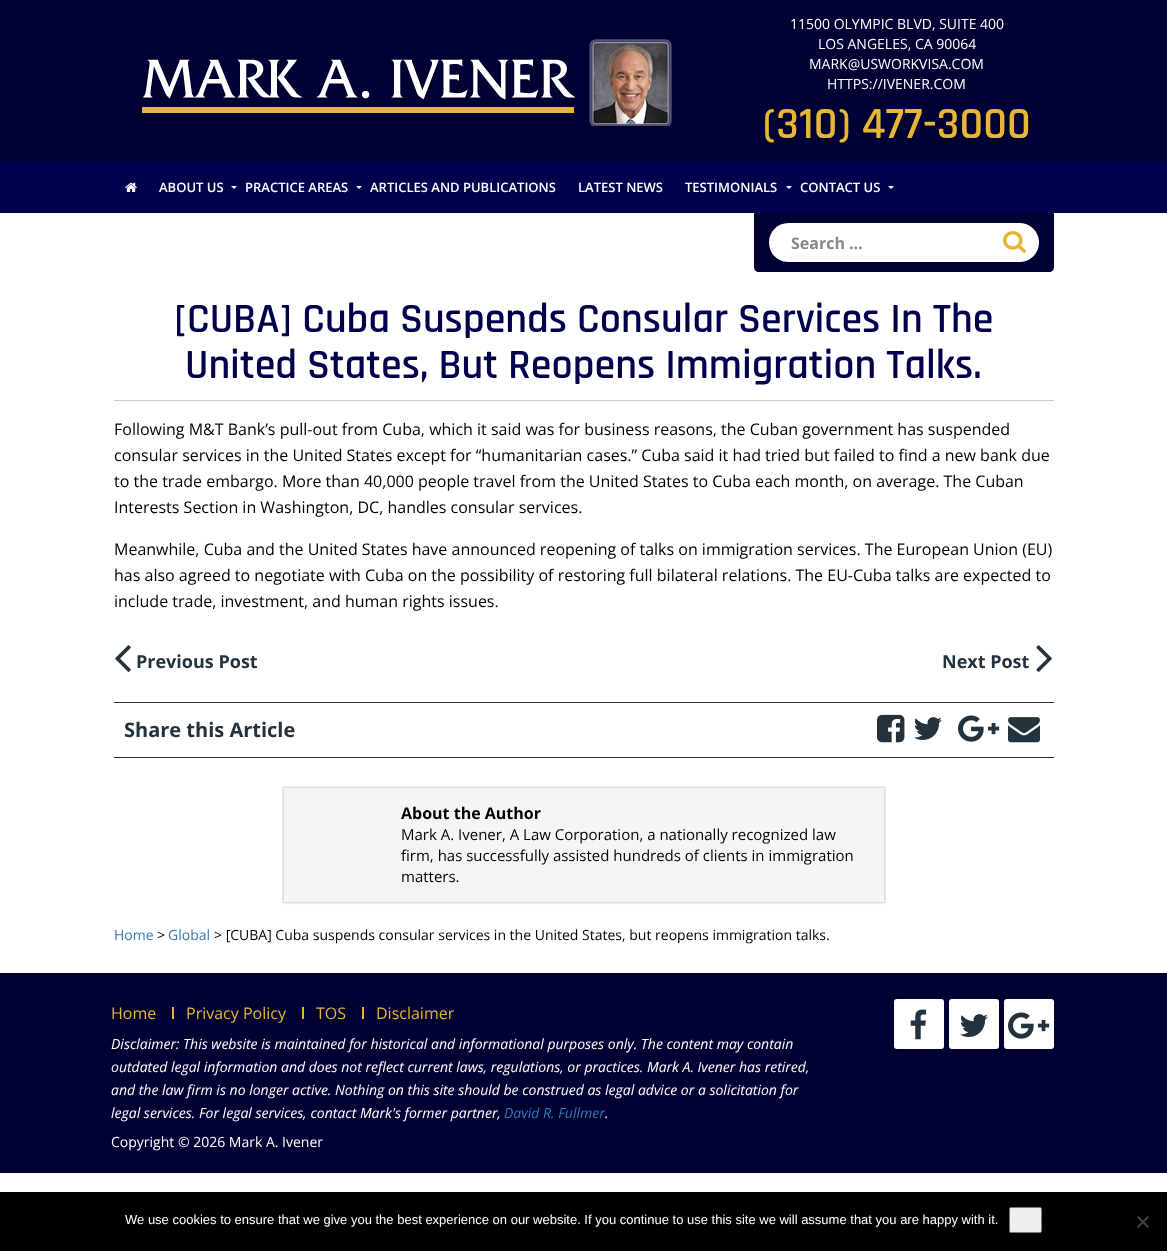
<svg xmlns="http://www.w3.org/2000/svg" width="1167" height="1251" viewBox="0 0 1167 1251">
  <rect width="100%" height="100%" fill="rgb(255,255,255)"/>
  <rect x="0" y="0" width="1167" height="161" fill="rgb(0,0,51)"/>
  <image x="142" y="39" width="530" height="87" href="pic1.png"/>
  <g font-family="Open Sans" font-size="14" fill="rgb(255,255,255)">
    <text x="790" y="29">11500 OLYMPIC BLVD, SUITE 400</text>
    <text x="818" y="49">LOS ANGELES, CA 90064</text>
    <text x="809" y="69">MARK@USWORKVISA.COM</text>
    <text x="827" y="89">HTTPS://IVENER.COM</text>
  </g>
  <text x="763" y="138" font-family="Rajdhani" font-size="45" font-weight="600" fill="rgb(231,182,54)">(310) 477-3000</text>
  <rect x="0" y="161" width="1167" height="52" fill="rgb(0,0,77)"/>
  <image x="125" y="182" width="12" height="10" href="pic2.png"/>
  <text x="159" y="192" font-family="Open Sans" font-size="13" font-weight="600" fill="rgb(255,255,255)">ABOUT US</text>
  <path d="M231 186H237L234 189Z" fill="rgb(255,255,255)"/>
  <text x="245" y="192" font-family="Open Sans" font-size="13" font-weight="600" fill="rgb(255,255,255)">PRACTICE AREAS</text>
  <path d="M356 186H362L359 189Z" fill="rgb(255,255,255)"/>
  <g font-family="Open Sans" font-size="13" font-weight="600" fill="rgb(255,255,255)">
    <text x="370" y="192">ARTICLES AND PUBLICATIONS</text>
    <text x="578" y="192">LATEST NEWS</text>
    <text x="685" y="192">TESTIMONIALS</text>
  </g>
  <path d="M786 186H792L789 189Z" fill="rgb(255,255,255)"/>
  <text x="800" y="192" font-family="Open Sans" font-size="13" font-weight="600" fill="rgb(255,255,255)">CONTACT US</text>
  <path d="M888 186H894L891 189Z" fill="rgb(255,255,255)"/>
  <path d="M754 213H1054V267C1054 270 1052 272 1049 272H759C756 272 754 270 754 267Z" fill="rgb(0,0,51)"/>
  <path d="M788.5 223H1000V262H788.5C777.5 262 769 253.5 769 242.5C769 231.5 777.5 223 788.5 223Z" fill="rgb(255,255,255)"/>
  <text x="791" y="249" font-family="Open Sans" font-size="16" font-weight="bold" fill="rgb(136,136,136)">Search …</text>
  <image x="1000" y="223" width="39" height="39" href="pic3.png"/>
  <g font-family="Rajdhani" font-size="42" font-weight="600" fill="rgb(0,0,77)">
    <text x="174" y="332">[CUBA] Cuba Suspends Consular Services In The</text>
    <text x="185" y="378">United States, But Reopens Immigration Talks.</text>
  </g>
  <rect x="114" y="400" width="940" height="1" fill="rgb(204,204,204)"/>
  <g font-family="Open Sans" font-size="16" fill="rgb(0,0,0)">
    <text>
      <tspan x="114" y="435">Following M&amp;T Bank’s pull-out from Cuba, which it said was for business reasons, the Cuban government has suspended</tspan>
      <tspan x="114" y="461">consular services in the United States except for “humanitarian cases.” Cuba said it had tried but failed to find a new bank due</tspan>
      <tspan x="114" y="487">to the trade embargo. More than 40,000 people travel from the United States to Cuba each month, on average. The Cuban</tspan>
      <tspan x="114" y="513">Interests Section in Washington, DC, handles consular services.</tspan>
    </text>
    <text>
      <tspan x="114" y="555">Meanwhile, Cuba and the United States have announced reopening of talks on immigration services. The European Union (EU)</tspan>
      <tspan x="114" y="581">has also agreed to negotiate with Cuba on the possibility of restoring full bilateral relations. The EU-Cuba talks are expected to</tspan>
      <tspan x="114" y="607">include trade, investment, and human rights issues.</tspan>
    </text>
  </g>
  <image x="115" y="645" width="16" height="27" href="pic4.png"/>
  <g font-family="Open Sans" font-size="18" font-weight="bold" fill="rgb(36,50,61)">
    <text x="136" y="668">Previous Post</text>
    <text x="942" y="668">Next Post</text>
  </g>
  <image x="1036" y="645" width="16" height="27" href="pic5.png"/>
  <rect x="114" y="702" width="940" height="1" fill="rgb(36,50,61)"/>
  <rect x="114" y="757" width="940" height="1" fill="rgb(36,50,61)"/>
  <text x="124" y="737" font-family="Open Sans" font-size="20" font-weight="bold" fill="rgb(36,50,61)">Share this Article</text>
  <image x="877" y="714" width="28" height="29" href="pic6.png"/>
  <image x="914" y="717" width="28" height="23" href="pic7.png"/>
  <image x="958" y="715" width="42" height="27" href="pic8.png"/>
  <image x="1008" y="717" width="32" height="26" href="pic9.png"/>
  <rect x="283" y="787" width="602" height="116" fill="rgb(204,204,204)" filter="blur(1px)"/>
  <rect x="284" y="788" width="600" height="114" fill="rgb(245,245,245)"/>
  <text x="401" y="819" font-family="Open Sans" font-size="16" font-weight="bold" fill="rgb(0,0,0)">About the Author</text>
  <g font-family="Open Sans" font-size="15" fill="rgb(0,0,0)">
    <text>
      <tspan x="401" y="840">Mark A. Ivener, A Law Corporation, a nationally recognized law</tspan>
      <tspan x="401" y="861">firm, has successfully assisted hundreds of clients in immigration</tspan>
      <tspan x="401" y="882">matters.</tspan>
    </text>
  </g>
  <text x="114" y="940" font-family="Open Sans" font-size="14" fill="rgb(51,122,183)">Home</text>
  <text x="157" y="940" font-family="Open Sans" font-size="14" fill="rgb(0,0,0)">&gt;</text>
  <text x="168" y="940" font-family="Open Sans" font-size="14" fill="rgb(51,122,183)">Global</text>
  <text x="214" y="940" font-family="Open Sans" font-size="14" fill="rgb(0,0,0)">&gt; [CUBA] Cuba suspends consular services in the United States, but reopens immigration talks.</text>
  <rect x="0" y="973" width="1167" height="200" fill="rgb(0,0,51)"/>
  <text x="111" y="1019" font-family="Open Sans" font-size="16" fill="rgb(231,182,54)">Home</text>
  <rect x="172" y="1007" width="2" height="12" fill="rgb(231,181,54)"/>
  <text x="186" y="1019" font-family="Open Sans" font-size="16" fill="rgb(231,182,54)">Privacy Policy</text>
  <rect x="302" y="1007" width="2" height="12" fill="rgb(231,181,54)"/>
  <text x="316" y="1019" font-family="Open Sans" font-size="16" fill="rgb(231,182,54)">TOS</text>
  <rect x="362" y="1007" width="2" height="12" fill="rgb(231,181,54)"/>
  <text x="376" y="1019" font-family="Open Sans" font-size="16" fill="rgb(231,182,54)">Disclaimer</text>
  <g font-family="Open Sans" font-size="14" font-style="italic" fill="rgb(255,255,255)">
    <text>
      <tspan x="111" y="1049">Disclaimer: This website is maintained for historical and informational purposes only. The content may contain</tspan>
      <tspan x="111" y="1072">outdated legal information and does not reflect current laws, regulations, or practices. Mark A. Ivener has retired,</tspan>
      <tspan x="111" y="1095">and the law firm is no longer active. Nothing on this site should be construed as legal advice or a solicitation for</tspan>
      <tspan x="111" y="1118">legal services. For legal services, contact Mark's former partner,</tspan>
    </text>
  </g>
  <text x="504" y="1118" font-family="Open Sans" font-size="14" font-style="italic" fill="rgb(51,122,183)">David R. Fullmer</text>
  <text x="605" y="1118" font-family="Open Sans" font-size="14" font-style="italic" fill="rgb(255,255,255)">.</text>
  <text x="111" y="1147" font-family="Open Sans" font-size="14" fill="rgb(255,255,255)">Copyright © 2026 Mark A. Ivener</text>
  <rect x="894" y="999" width="50" height="50" rx="3" fill="rgb(255,255,255)"/>
  <image x="910" y="1009" width="17" height="31" href="pic10.png"/>
  <rect x="949" y="999" width="50" height="50" rx="3" fill="rgb(255,255,255)"/>
  <image x="960" y="1014" width="28" height="23" href="pic7.png"/>
  <rect x="1004" y="999" width="50" height="50" rx="3" fill="rgb(255,255,255)"/>
  <image x="1008" y="1012" width="42" height="27" href="pic8.png"/>
  <rect x="0" y="1192" width="1167" height="59" fill="rgb(0,0,0)"/>
  <text x="125" y="1224" font-family="Liberation Sans" font-size="13" fill="rgb(255,255,255)">We use cookies to ensure that we give you the best experience on our website. If you continue to use this site we will assume that you are happy with it.</text>
  <rect x="1009.5" y="1207.5" width="32" height="25" rx="1.5" fill="rgb(239,239,239)" stroke="rgb(118,118,118)"/>
  <path d="M1147.5 1216L1149 1217.5L1138.5 1228L1137 1226.5Z" fill="rgb(64,64,64)"/>
  <path d="M1137 1217.5L1138.5 1216L1149 1226.5L1147.5 1228Z" fill="rgb(64,64,64)"/>
</svg>
